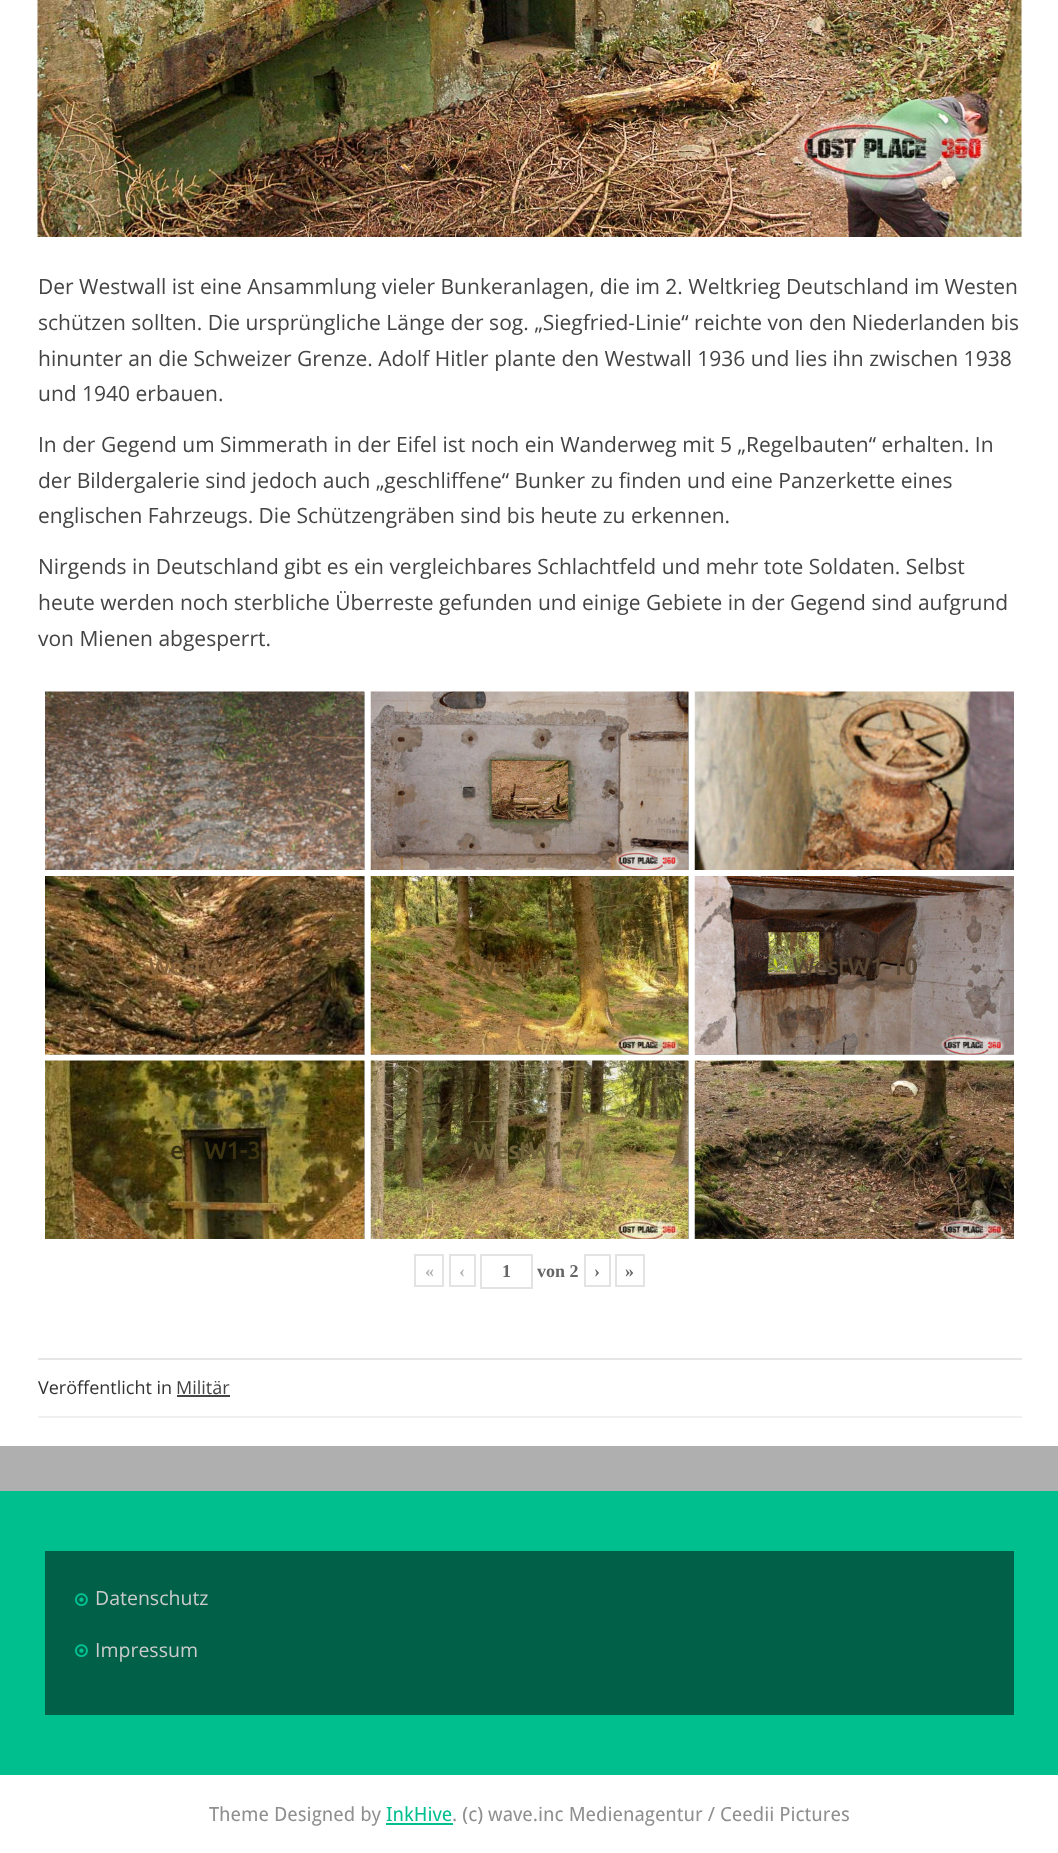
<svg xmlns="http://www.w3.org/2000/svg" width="1058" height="1853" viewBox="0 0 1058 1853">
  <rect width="100%" height="100%" fill="rgb(175,175,175)"/>
  <rect x="0" y="0" width="1058" height="1446" fill="rgb(255,255,255)"/>
  <image x="37" y="0" width="985" height="237" href="pic1.png"/>
  <g font-family="Open Sans" font-size="21" fill="rgb(68,68,68)">
    <text>
      <tspan x="38" y="294">Der Westwall ist eine Ansammlung vieler Bunkeranlagen, die im 2. Weltkrieg Deutschland im Westen</tspan>
      <tspan x="38" y="330">schützen sollten. Die ursprüngliche Länge der sog. „Siegfried-Linie“ reichte von den Niederlanden bis</tspan>
      <tspan x="38" y="366">hinunter an die Schweizer Grenze. Adolf Hitler plante den Westwall 1936 und lies ihn zwischen 1938</tspan>
      <tspan x="38" y="401">und 1940 erbauen.</tspan>
    </text>
    <text>
      <tspan x="38" y="452">In der Gegend um Simmerath in der Eifel ist noch ein Wanderweg mit 5 „Regelbauten“ erhalten. In</tspan>
      <tspan x="38" y="488">der Bildergalerie sind jedoch auch „geschliffene“ Bunker zu finden und eine Panzerkette eines</tspan>
      <tspan x="38" y="523">englischen Fahrzeugs. Die Schützengräben sind bis heute zu erkennen.</tspan>
    </text>
    <text>
      <tspan x="38" y="574">Nirgends in Deutschland gibt es ein vergleichbares Schlachtfeld und mehr tote Soldaten. Selbst</tspan>
      <tspan x="38" y="610">heute werden noch sterbliche Überreste gefunden und einige Gebiete in der Gegend sind aufgrund</tspan>
      <tspan x="38" y="646">von Mienen abgesperrt.</tspan>
    </text>
  </g>
  <rect x="364" y="692" width="1" height="178" fill="rgb(179,179,179)"/>
  <image x="45" y="691" width="320" height="179" href="pic2.png"/>
  <rect x="688" y="692" width="1" height="178" fill="rgb(179,179,179)"/>
  <image x="370" y="691" width="319" height="179" href="pic3.png"/>
  <text x="565" y="790" font-family="Ubuntu" font-size="24" font-weight="bold" fill="rgb(160,130,101)">-</text>
  <image x="694" y="691" width="320" height="179" href="pic4.png"/>
  <text x="890" y="790" font-family="Ubuntu" font-size="24" font-weight="bold" fill="rgb(171,139,101)">-</text>
  <rect x="45" y="876" width="320" height="179" fill="rgb(179,179,179)"/>
  <image x="45" y="876" width="320" height="179" href="pic5.png"/>
  <text x="148" y="975" font-family="Ubuntu" font-size="24" font-weight="bold" fill="rgb(135,100,61)">WestW1-1</text>
  <rect x="371" y="876" width="318" height="179" fill="rgb(179,179,179)"/>
  <image x="370" y="876" width="319" height="179" href="pic6.png"/>
  <text x="473" y="975" font-family="Ubuntu" font-size="24" font-weight="bold" fill="rgb(109,85,39)">WestW1-8</text>
  <rect x="695" y="1054" width="319" height="1" fill="rgb(179,179,179)"/>
  <image x="694" y="876" width="320" height="179" href="pic7.png"/>
  <text x="792" y="975" font-family="Ubuntu" font-size="24" font-weight="bold" fill="rgb(86,70,51)">WestW1-10</text>
  <rect x="364" y="1061" width="1" height="178" fill="rgb(179,179,179)"/>
  <image x="45" y="1060" width="320" height="179" href="pic8.png"/>
  <g font-family="Ubuntu" font-size="24" font-weight="bold" fill="rgb(59,50,18)">
    <text x="170" y="1159">e</text>
    <text x="204" y="1159">W1-3</text>
  </g>
  <rect x="688" y="1061" width="1" height="178" fill="rgb(179,179,179)"/>
  <image x="370" y="1060" width="319" height="179" href="pic9.png"/>
  <text x="473" y="1159" font-family="Ubuntu" font-size="24" font-weight="bold" fill="rgb(113,99,59)">WestW1-7</text>
  <image x="694" y="1060" width="320" height="179" href="pic10.png"/>
  <rect x="415" y="1255" width="28" height="31" fill="none" stroke="rgb(227,227,227)" stroke-width="2"/>
  <text x="425" y="1277" font-family="Liberation Serif" font-size="18" font-weight="bold" fill="rgb(179,179,179)">«</text>
  <rect x="450" y="1255" width="25" height="31" fill="none" stroke="rgb(227,227,227)" stroke-width="2"/>
  <text x="459" y="1277" font-family="Liberation Serif" font-size="18" font-weight="bold" fill="rgb(179,179,179)">‹</text>
  <rect x="481" y="1255" width="51" height="33" fill="none" stroke="rgb(227,227,227)" stroke-width="2"/>
  <g font-family="Liberation Serif" font-size="18" font-weight="bold" fill="rgb(102,102,102)">
    <text x="502" y="1277">1</text>
    <text x="537" y="1277">von 2</text>
  </g>
  <rect x="585" y="1255" width="25" height="31" fill="none" stroke="rgb(227,227,227)" stroke-width="2"/>
  <text x="594" y="1277" font-family="Liberation Serif" font-size="18" font-weight="bold" fill="rgb(102,102,102)">›</text>
  <rect x="616" y="1255" width="28" height="31" fill="none" stroke="rgb(227,227,227)" stroke-width="2"/>
  <text x="625" y="1277" font-family="Liberation Serif" font-size="18" font-weight="bold" fill="rgb(102,102,102)">»</text>
  <rect x="38" y="1358" width="984" height="2" fill="rgb(230,230,230)"/>
  <rect x="38" y="1416" width="984" height="2" fill="rgb(240,240,240)"/>
  <text x="38" y="1394" font-family="Open Sans" font-size="18" fill="rgb(51,51,51)">Veröffentlicht in</text>
  <text x="176" y="1394" font-family="Open Sans" font-size="18" fill="rgb(68,68,68)">Militär</text>
  <rect x="177" y="1395" width="53" height="2" fill="rgb(68,68,68)"/>
  <rect x="0" y="1491" width="1058" height="284" fill="rgb(0,191,143)"/>
  <rect x="45" y="1551" width="969" height="164" fill="rgb(0,96,72)"/>
  <image x="75" y="1593" width="13" height="13" href="pic11.png"/>
  <text x="95" y="1605" font-family="Open Sans" font-size="19.5" fill="rgb(204,204,204)">Datenschutz</text>
  <image x="75" y="1644" width="13" height="13" href="pic11.png"/>
  <text x="95" y="1657" font-family="Open Sans" font-size="19.5" fill="rgb(204,204,204)">Impressum</text>
  <rect x="0" y="1775" width="1058" height="78" fill="rgb(255,255,255)"/>
  <text x="209" y="1821" font-family="Droid Sans" font-size="19.5" fill="rgb(143,143,143)">Theme Designed by</text>
  <text x="386" y="1821" font-family="Droid Sans" font-size="19.5" fill="rgb(0,191,143)">InkHive</text>
  <rect x="386" y="1823" width="67" height="2" fill="rgb(0,191,143)"/>
  <text x="452" y="1821" font-family="Droid Sans" font-size="19.5" fill="rgb(143,143,143)">. (c) wave.inc Medienagentur / Ceedii Pictures</text>
</svg>
